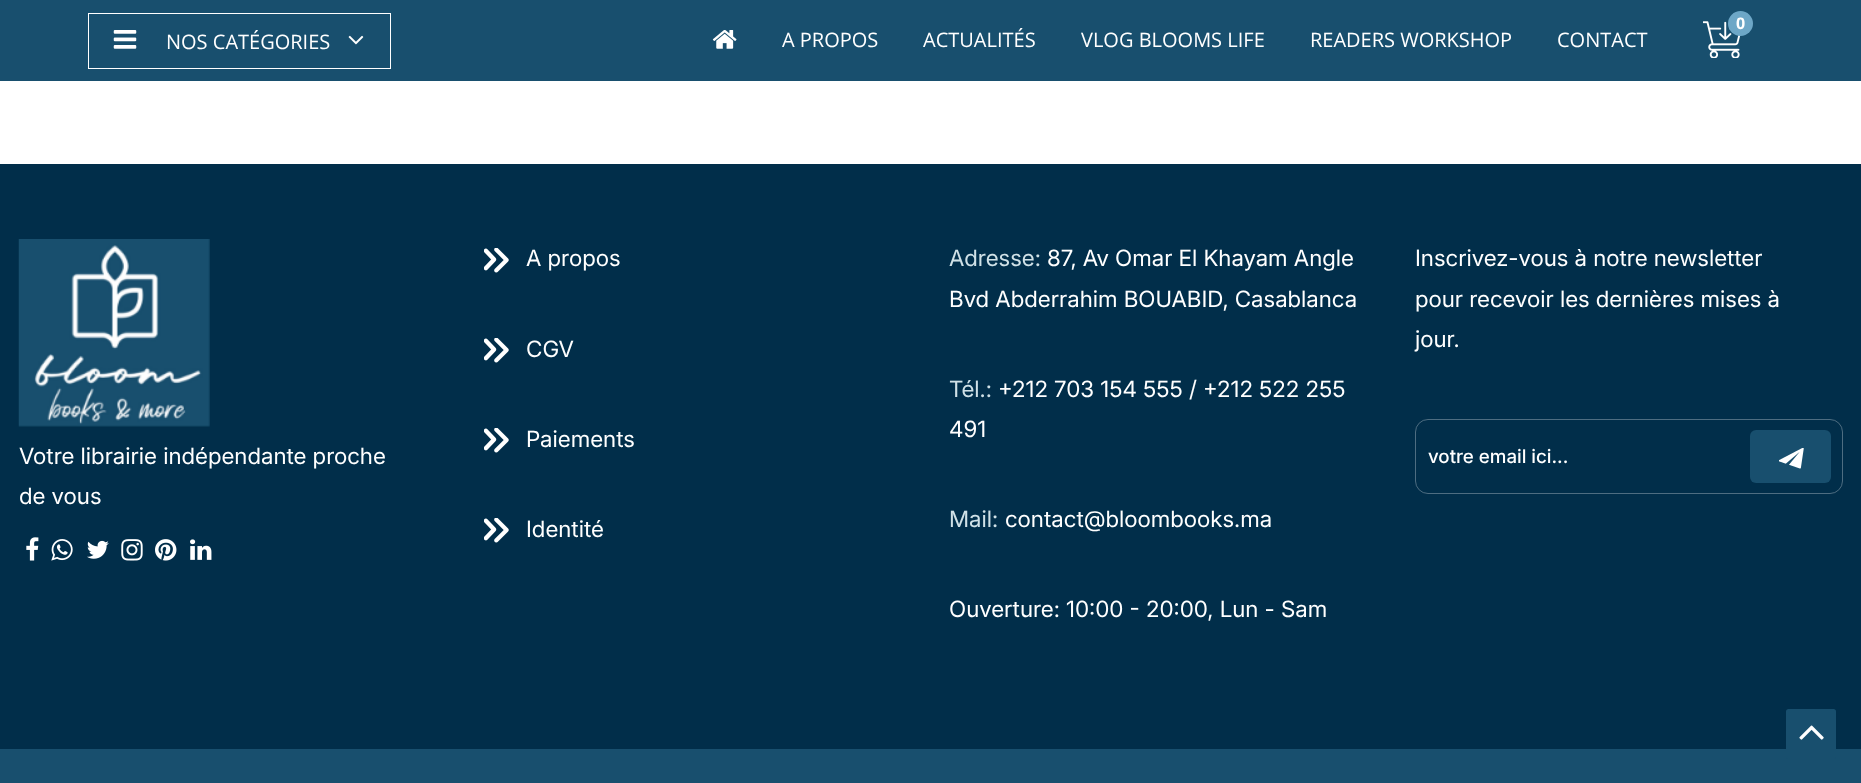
<svg xmlns="http://www.w3.org/2000/svg" width="1861" height="783" viewBox="0 0 1861 783">
  <rect width="100%" height="100%" fill="rgb(255,255,255)"/>
  <rect x="0" y="0" width="1861" height="81" fill="rgb(24,79,110)"/>
  <rect x="88.5" y="13.5" width="302" height="55" fill="none" stroke="rgb(255,255,255)"/>
  <image x="113" y="30" width="24" height="19" href="pic1.png"/>
  <text x="166" y="49" font-family="Open Sans" font-size="20" fill="rgb(255,255,255)">NOS CATÉGORIES</text>
  <image x="348" y="35" width="16" height="10" href="pic2.png"/>
  <image x="1703" y="21" width="38" height="37" href="pic3.png"/>
  <circle cx="1740.5" cy="23.5" r="12.5" fill="rgb(109,167,199)"/>
  <text x="1736" y="29" font-family="Open Sans" font-size="16" font-weight="bold" fill="rgb(255,255,255)">0</text>
  <image x="712" y="30" width="25" height="19" href="pic4.png"/>
  <g font-family="Open Sans" font-size="20" fill="rgb(255,255,255)">
    <text x="782" y="47">A PROPOS</text>
    <text x="923" y="47">ACTUALITÉS</text>
    <text x="1081" y="47">VLOG BLOOMS LIFE</text>
    <text x="1310" y="47">READERS WORKSHOP</text>
    <text x="1557" y="47">CONTACT</text>
  </g>
  <rect x="0" y="164" width="1861" height="585" fill="rgb(1,46,74)"/>
  <image x="484" y="248" width="25" height="25" href="pic5.png"/>
  <text x="526" y="266" font-family="Inter" font-size="22.5" fill="rgb(255,255,255)">A propos</text>
  <image x="484" y="338" width="25" height="25" href="pic5.png"/>
  <text x="526" y="357" font-family="Inter" font-size="22.5" fill="rgb(255,255,255)">CGV</text>
  <image x="484" y="428" width="25" height="25" href="pic5.png"/>
  <text x="526" y="447" font-family="Inter" font-size="22.5" fill="rgb(255,255,255)">Paiements</text>
  <image x="484" y="518" width="25" height="25" href="pic5.png"/>
  <text x="526" y="537" font-family="Inter" font-size="22.5" fill="rgb(255,255,255)">Identité</text>
  <text x="949" y="266" font-family="Inter" font-size="22.5" fill="rgb(208,225,231)">Adresse:</text>
  <g font-family="Inter" font-size="22.5" fill="rgb(255,255,255)">
    <text x="1047" y="266">87, Av Omar El Khayam Angle</text>
    <text x="949" y="307">Bvd Abderrahim BOUABID, Casablanca</text>
  </g>
  <text x="949" y="397" font-family="Inter" font-size="22.5" fill="rgb(208,225,231)">Tél.:</text>
  <g font-family="Inter" font-size="22.5" fill="rgb(255,255,255)">
    <text x="998" y="397">+212 703 154 555 / +212 522 255</text>
    <text x="949" y="437">491</text>
  </g>
  <text x="949" y="527" font-family="Inter" font-size="22.5" fill="rgb(208,225,231)">Mail:</text>
  <g font-family="Inter" font-size="22.5" fill="rgb(255,255,255)">
    <text x="1005" y="527">contact@bloombooks.ma</text>
    <text x="949" y="617">Ouverture: 10:00 - 20:00, Lun - Sam</text>
    <text>
      <tspan x="1415" y="266">Inscrivez-vous à notre newsletter</tspan>
      <tspan x="1415" y="307">pour recevoir les dernières mises à</tspan>
      <tspan x="1415" y="347">jour.</tspan>
    </text>
  </g>
  <rect x="1415.5" y="419.5" width="427" height="74" rx="12.5" fill="none" stroke="rgb(78,109,129)"/>
  <text x="1428" y="463" font-family="Inter" font-size="18.75" font-weight="500" fill="rgb(255,255,255)">votre email ici...</text>
  <rect x="1750" y="430" width="81" height="53" rx="6" fill="rgb(24,79,110)"/>
  <image x="1779" y="448" width="25" height="21" href="pic6.png"/>
  <image x="18" y="239" width="192" height="188" href="pic7.png"/>
  <g font-family="Inter" font-size="22.5" fill="rgb(255,255,255)">
    <text>
      <tspan x="19" y="464">Votre librairie indépendante proche</tspan>
      <tspan x="19" y="504">de vous</tspan>
    </text>
  </g>
  <image x="26" y="537" width="13" height="24" href="pic8.png"/>
  <image x="51" y="539" width="22" height="22" href="pic9.png"/>
  <image x="87" y="540" width="22" height="19" href="pic10.png"/>
  <image x="121" y="539" width="22" height="22" href="pic11.png"/>
  <image x="155" y="539" width="22" height="22" href="pic12.png"/>
  <image x="190" y="539" width="22" height="21" href="pic13.png"/>
  <rect x="0" y="749" width="1861" height="34" fill="rgb(24,79,110)"/>
  <rect x="1786" y="709" width="50" height="50" rx="2.5" fill="rgb(24,79,110)"/>
  <image x="1799" y="725" width="25" height="15" href="pic14.png"/>
</svg>
